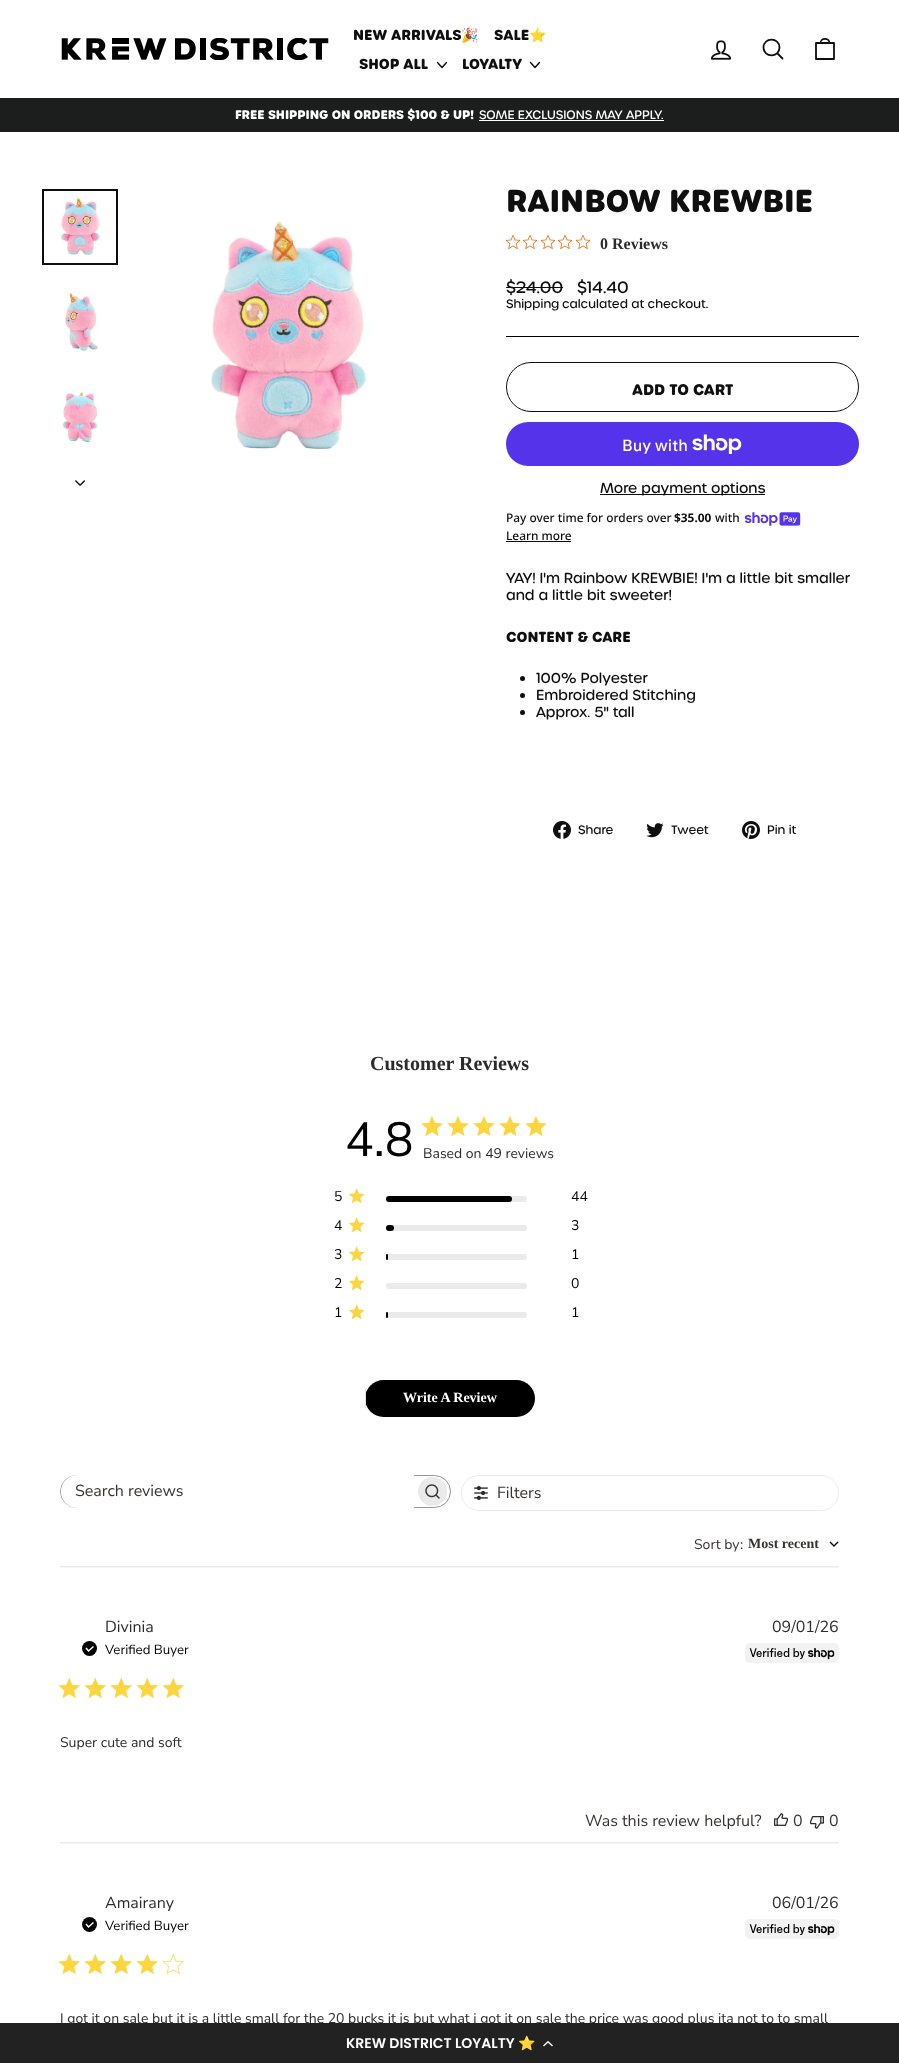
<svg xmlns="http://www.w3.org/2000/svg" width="899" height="2063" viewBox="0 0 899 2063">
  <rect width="100%" height="100%" fill="rgb(255,255,255)"/>
  <image x="61" y="38" width="268" height="22" href="pic1.png"/>
  <text x="353" y="40" font-family="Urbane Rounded" font-size="14" font-weight="bold" fill="rgb(15,15,15)">NEW ARRIVALS</text>
  <text x="461" y="40" font-family="Noto Color Emoji" font-size="14" font-weight="bold" fill="rgb(15,15,15)">🎉</text>
  <text x="494" y="40" font-family="Urbane Rounded" font-size="14" font-weight="bold" fill="rgb(15,15,15)">SALE</text>
  <text x="529" y="40" font-family="Noto Color Emoji" font-size="14" font-weight="bold" fill="rgb(15,15,15)">⭐</text>
  <text x="359" y="69" font-family="Urbane Rounded" font-size="14" font-weight="bold" fill="rgb(15,15,15)">SHOP ALL</text>
  <path d="M437.5 62.5L442 67.5L446.5 62.5" fill="none" stroke="rgb(15,15,15)" stroke-width="1.4" stroke-linecap="round" stroke-linejoin="round"/>
  <text x="462" y="69" font-family="Urbane Rounded" font-size="14" font-weight="bold" fill="rgb(15,15,15)">LOYALTY</text>
  <path d="M530.5 62.5L535 67.5L539.5 62.5" fill="none" stroke="rgb(15,15,15)" stroke-width="1.4" stroke-linecap="round" stroke-linejoin="round"/>
  <image x="710" y="40" width="22" height="20" href="pic2.png"/>
  <path d="M779.5 47.5C779.5 58 763.5 58 763.5 47.5C763.5 37 779.5 37 779.5 47.5ZM782.5 58.5L777.5 53.5" fill="none" stroke="rgb(15,15,15)" stroke-width="1.8" stroke-linecap="round" stroke-linejoin="round"/>
  <path d="M816 43H834V59H816ZM820.5 43C820.5 37.5 829.5 37.5 829.5 43" fill="none" stroke="rgb(15,15,15)" stroke-width="1.8" stroke-linecap="round" stroke-linejoin="round"/>
  <rect x="0" y="98" width="899" height="34" fill="rgb(28,29,29)"/>
  <text x="235" y="119" font-family="Urbane Rounded" font-size="12" font-weight="bold" fill="rgb(255,255,255)">FREE SHIPPING ON ORDERS $100 &amp; UP!</text>
  <text x="479" y="119" font-family="Urbane Rounded" font-size="11.9" font-weight="500" fill="rgb(255,255,255)">SOME EXCLUSIONS MAY APPLY.</text>
  <rect x="479" y="120" width="185" height="1" fill="rgb(255,255,255)"/>
  <image x="58" y="197" width="45" height="58" href="pic3.png"/>
  <rect x="43" y="190" width="74" height="74" fill="none" stroke="rgb(15,15,15)" stroke-width="2"/>
  <image x="63" y="293" width="35" height="58" href="pic4.png"/>
  <image x="62" y="392" width="36" height="52" href="pic5.png"/>
  <image x="75" y="480" width="10" height="6" href="pic6.png"/>
  <image x="211" y="221" width="156" height="229" href="pic7.png"/>
  <text x="506" y="212" font-family="Urbane Rounded" font-size="30.6" font-weight="bold" fill="rgb(15,15,15)">RAINBOW KREWBIE</text>
  <image x="506" y="235" width="14" height="14" href="pic8.png"/>
  <image x="523" y="235" width="14" height="14" href="pic8.png"/>
  <image x="541" y="235" width="14" height="14" href="pic8.png"/>
  <image x="558" y="235" width="14" height="14" href="pic8.png"/>
  <image x="576" y="235" width="14" height="14" href="pic8.png"/>
  <text x="600" y="249" font-family="Liberation Serif" font-size="16" font-weight="bold" fill="rgb(44,44,44)">0 Reviews</text>
  <text x="506" y="293" font-family="Urbane Rounded" font-size="16" font-weight="500" fill="rgb(15,15,15)">$24.00</text>
  <rect x="506" y="287" width="57" height="1" fill="rgb(15,15,15)"/>
  <text x="577" y="293" font-family="Urbane Rounded" font-size="16" font-weight="500" fill="rgb(15,15,15)">$14.40</text>
  <g font-family="Urbane Rounded" font-size="11.9" font-weight="500" fill="rgb(15,15,15)">
    <text x="506" y="308">Shipping</text>
    <text x="562" y="308">calculated at checkout.</text>
  </g>
  <rect x="506" y="336" width="353" height="1" fill="rgb(0,0,0)"/>
  <rect x="506.5" y="362.5" width="352" height="49" rx="24.5" fill="none" stroke="rgb(15,15,15)"/>
  <text x="632" y="395" font-family="Urbane Rounded" font-size="15" font-weight="bold" fill="rgb(15,15,15)">ADD TO CART</text>
  <rect x="506" y="422" width="353" height="44" rx="22" fill="rgb(84,51,235)"/>
  <text x="622" y="451" font-family="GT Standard" font-size="16" font-weight="500" fill="rgb(255,255,255)">Buy with</text>
  <image x="692" y="434" width="50" height="20" href="pic9.png"/>
  <rect x="600" y="494" width="165" height="1" fill="rgb(15,15,15)"/>
  <text x="600" y="493" font-family="Urbane Rounded" font-size="14" font-weight="500" fill="rgb(15,15,15)">More payment options</text>
  <text x="506" y="522" font-family="Noto Sans" font-size="11.9" font-weight="500" fill="rgb(15,15,15)">Pay over time for orders over</text>
  <text x="674" y="522" font-family="Noto Sans" font-size="11.9" font-weight="bold" fill="rgb(15,15,15)">$35.00</text>
  <text x="715" y="522" font-family="Noto Sans" font-size="11.9" font-weight="500" fill="rgb(15,15,15)">with</text>
  <image x="744" y="512" width="57" height="14" href="pic10.png"/>
  <text x="506" y="540" font-family="Noto Sans" font-size="11.9" font-weight="500" fill="rgb(15,15,15)">Learn more</text>
  <rect x="506" y="541" width="65" height="1" fill="rgb(15,15,15)"/>
  <g font-family="Urbane Rounded" font-size="14" font-weight="500" fill="rgb(15,15,15)">
    <text>
      <tspan x="506" y="583">YAY! I'm Rainbow KREWBIE! I'm a little bit smaller</tspan>
      <tspan x="506" y="600">and a little bit sweeter!</tspan>
    </text>
  </g>
  <text x="506" y="642" font-family="Urbane Rounded" font-size="14" font-weight="bold" fill="rgb(15,15,15)">CONTENT &amp; CARE</text>
  <circle cx="522.5" cy="678.5" r="2.5" fill="rgb(15,15,15)"/>
  <text x="536" y="683" font-family="Urbane Rounded" font-size="14" font-weight="500" fill="rgb(15,15,15)">100% Polyester</text>
  <circle cx="522.5" cy="695.5" r="2.5" fill="rgb(15,15,15)"/>
  <text x="536" y="700" font-family="Urbane Rounded" font-size="14" font-weight="500" fill="rgb(15,15,15)">Embroidered Stitching</text>
  <circle cx="522.5" cy="712.5" r="2.5" fill="rgb(15,15,15)"/>
  <text x="536" y="717" font-family="Urbane Rounded" font-size="14" font-weight="500" fill="rgb(15,15,15)">Approx. 5" tall</text>
  <image x="553" y="821" width="18" height="18" href="pic11.png"/>
  <text x="578" y="834" font-family="Urbane Rounded" font-size="11.9" font-weight="500" fill="rgb(15,15,15)">Share</text>
  <image x="646" y="823" width="18" height="15" href="pic12.png"/>
  <text x="671" y="834" font-family="Urbane Rounded" font-size="11.9" font-weight="500" fill="rgb(15,15,15)">Tweet</text>
  <image x="742" y="821" width="18" height="18" href="pic13.png"/>
  <text x="767" y="834" font-family="Urbane Rounded" font-size="11.9" font-weight="500" fill="rgb(15,15,15)">Pin it</text>
  <text x="370" y="1070" font-family="Liberation Serif" font-size="20" font-weight="bold" fill="rgb(44,44,44)">Customer Reviews</text>
  <text x="345" y="1156" font-family="Nunito Sans" font-size="48" font-weight="200" fill="rgb(0,0,0)">4.8</text>
  <image x="421" y="1115" width="22" height="22" href="pic14.png"/>
  <image x="447" y="1115" width="22" height="22" href="pic14.png"/>
  <image x="473" y="1115" width="22" height="22" href="pic14.png"/>
  <image x="499" y="1115" width="22" height="22" href="pic14.png"/>
  <image x="525" y="1115" width="22" height="22" href="pic14.png"/>
  <text x="423" y="1158" font-family="Nunito Sans" font-size="14" font-weight="200" fill="rgb(44,44,44)">Based on 49 reviews</text>
  <text x="334" y="1201" font-family="Nunito Sans" font-size="14" font-weight="200" fill="rgb(0,0,0)">5</text>
  <image x="349" y="1188" width="16" height="16" href="pic15.png"/>
  <rect x="386" y="1196" width="141" height="6" rx="3" fill="rgb(234,234,234)"/>
  <rect x="386" y="1196" width="126" height="6" rx="3" fill="rgb(0,0,0)"/>
  <g font-family="Nunito Sans" font-size="14" font-weight="200" fill="rgb(0,0,0)">
    <text x="571" y="1201">44</text>
    <text x="334" y="1230">4</text>
  </g>
  <image x="349" y="1217" width="16" height="16" href="pic15.png"/>
  <rect x="386" y="1225" width="141" height="6" rx="3" fill="rgb(234,234,234)"/>
  <rect x="386" y="1225" width="8" height="6" rx="3" fill="rgb(0,0,0)"/>
  <g font-family="Nunito Sans" font-size="14" font-weight="200" fill="rgb(0,0,0)">
    <text x="571" y="1230">3</text>
    <text x="334" y="1259">3</text>
  </g>
  <image x="349" y="1246" width="16" height="16" href="pic15.png"/>
  <rect x="386" y="1254" width="141" height="6" rx="3" fill="rgb(234,234,234)"/>
  <rect x="386" y="1254" width="2" height="6" rx="1" fill="rgb(0,0,0)"/>
  <g font-family="Nunito Sans" font-size="14" font-weight="200" fill="rgb(0,0,0)">
    <text x="571" y="1259">1</text>
    <text x="334" y="1288">2</text>
  </g>
  <image x="349" y="1275" width="16" height="16" href="pic15.png"/>
  <rect x="386" y="1283" width="141" height="6" rx="3" fill="rgb(234,234,234)"/>
  <g font-family="Nunito Sans" font-size="14" font-weight="200" fill="rgb(0,0,0)">
    <text x="571" y="1288">0</text>
    <text x="334" y="1317">1</text>
  </g>
  <image x="349" y="1304" width="16" height="16" href="pic15.png"/>
  <rect x="386" y="1312" width="141" height="6" rx="3" fill="rgb(234,234,234)"/>
  <rect x="386" y="1312" width="2" height="6" rx="1" fill="rgb(0,0,0)"/>
  <text x="571" y="1317" font-family="Nunito Sans" font-size="14" font-weight="200" fill="rgb(0,0,0)">1</text>
  <rect x="365" y="1380" width="170" height="37" rx="18.5" fill="rgb(0,0,0)"/>
  <rect x="365" y="1389" width="1" height="19" fill="rgb(227,227,227)"/>
  <text x="403" y="1402" font-family="Liberation Serif" font-size="14" font-weight="bold" fill="rgb(255,255,255)">Write A Review</text>
  <rect x="60.5" y="1475.5" width="390" height="32" rx="16" fill="none" stroke="rgb(148,148,148)"/>
  <path d="M77.5 1475H414V1508H77.5C68.5 1508 61 1500.5 61 1491.5C61 1482.5 68.5 1475 77.5 1475Z" fill="rgb(255,255,255)"/>
  <text x="75" y="1496" font-family="Nunito Sans" font-size="16" font-weight="200" fill="rgb(55,51,48)">Search reviews</text>
  <circle cx="432.5" cy="1491.5" r="14.5" fill="rgb(234,234,234)"/>
  <image x="425" y="1484" width="15" height="15" href="pic16.png"/>
  <rect x="461.5" y="1475.5" width="377" height="35" rx="17.5" fill="none" stroke="rgb(234,234,234)"/>
  <image x="474" y="1486" width="14" height="14" href="pic17.png"/>
  <text x="497" y="1498" font-family="Nunito Sans" font-size="16" font-weight="200" fill="rgb(55,51,48)">Filters</text>
  <g font-family="Nunito Sans" font-size="14" font-weight="200" fill="rgb(55,51,48)">
    <text x="694" y="1549">Sort by</text>
    <text x="740" y="1549">:</text>
  </g>
  <text x="748" y="1548" font-family="Liberation Serif" font-size="14" font-weight="bold" fill="rgb(55,51,48)">Most recent</text>
  <path d="M830 1542L834 1546L838 1542" fill="none" stroke="rgb(0,0,0)" stroke-width="1.5"/>
  <image x="60" y="1566" width="779" height="2" href="pic18.png"/>
  <circle cx="89.5" cy="1648.5" r="7.5" fill="rgb(0,0,0)"/>
  <path d="M86 1648L88.5 1651L93.5 1646.5" fill="none" stroke="rgb(255,255,255)" stroke-width="1.5"/>
  <text x="105" y="1632" font-family="Nunito Sans" font-size="16" font-weight="200" fill="rgb(44,44,44)">Divinia</text>
  <text x="105" y="1654" font-family="Nunito Sans" font-size="13.25" font-weight="200" fill="rgb(0,0,0)">Verified Buyer</text>
  <text x="772" y="1632" font-family="Nunito Sans" font-size="16" font-weight="200" fill="rgb(44,44,44)">09/01/26</text>
  <image x="745" y="1643" width="94" height="20" href="pic19.png"/>
  <image x="58" y="1677" width="22" height="22" href="pic20.png"/>
  <image x="84" y="1677" width="22" height="22" href="pic20.png"/>
  <image x="110" y="1677" width="22" height="22" href="pic20.png"/>
  <image x="136" y="1677" width="22" height="22" href="pic20.png"/>
  <image x="162" y="1677" width="22" height="22" href="pic20.png"/>
  <text x="60" y="1747" font-family="Nunito Sans" font-size="14" font-weight="200" fill="rgb(44,44,44)">Super cute and soft</text>
  <text x="585" y="1826" font-family="Nunito Sans" font-size="16" font-weight="200" fill="rgb(55,51,48)">Was this review helpful?</text>
  <image x="774" y="1813" width="14" height="13" href="pic21.png"/>
  <text x="793" y="1826" font-family="Nunito Sans" font-size="16" font-weight="200" fill="rgb(55,51,48)">0</text>
  <image x="810" y="1816" width="14" height="13" href="pic22.png"/>
  <text x="829" y="1826" font-family="Nunito Sans" font-size="16" font-weight="200" fill="rgb(55,51,48)">0</text>
  <image x="60" y="1842" width="779" height="2" href="pic18.png"/>
  <circle cx="89.5" cy="1924.5" r="7.5" fill="rgb(0,0,0)"/>
  <path d="M86 1924L88.5 1927L93.5 1922.5" fill="none" stroke="rgb(255,255,255)" stroke-width="1.5"/>
  <text x="105" y="1908" font-family="Nunito Sans" font-size="16" font-weight="200" fill="rgb(44,44,44)">Amairany</text>
  <text x="105" y="1930" font-family="Nunito Sans" font-size="13.25" font-weight="200" fill="rgb(0,0,0)">Verified Buyer</text>
  <text x="772" y="1908" font-family="Nunito Sans" font-size="16" font-weight="200" fill="rgb(44,44,44)">06/01/26</text>
  <image x="745" y="1919" width="94" height="20" href="pic19.png"/>
  <image x="58" y="1953" width="22" height="22" href="pic20.png"/>
  <image x="84" y="1953" width="22" height="22" href="pic20.png"/>
  <image x="110" y="1953" width="22" height="22" href="pic20.png"/>
  <image x="136" y="1953" width="22" height="22" href="pic20.png"/>
  <image x="162" y="1953" width="22" height="22" href="pic23.png"/>
  <text x="60" y="2023" font-family="Nunito Sans" font-size="14" font-weight="200" fill="rgb(44,44,44)">I got it on sale but it is a little small for the 20 bucks it is but what i got it on sale the price was good plus ita not to to small</text>
  <rect x="0" y="2023" width="899" height="40" fill="rgb(34,34,34)"/>
  <text x="346" y="2048" font-family="Poppins" font-size="14" font-weight="600" fill="rgb(255,255,255)">KREW DISTRICT LOYALTY</text>
  <text x="518" y="2048" font-family="Noto Color Emoji" font-size="14" font-weight="bold" fill="rgb(255,255,255)">⭐</text>
  <image x="543" y="2041" width="10" height="6" href="pic24.png"/>
</svg>
